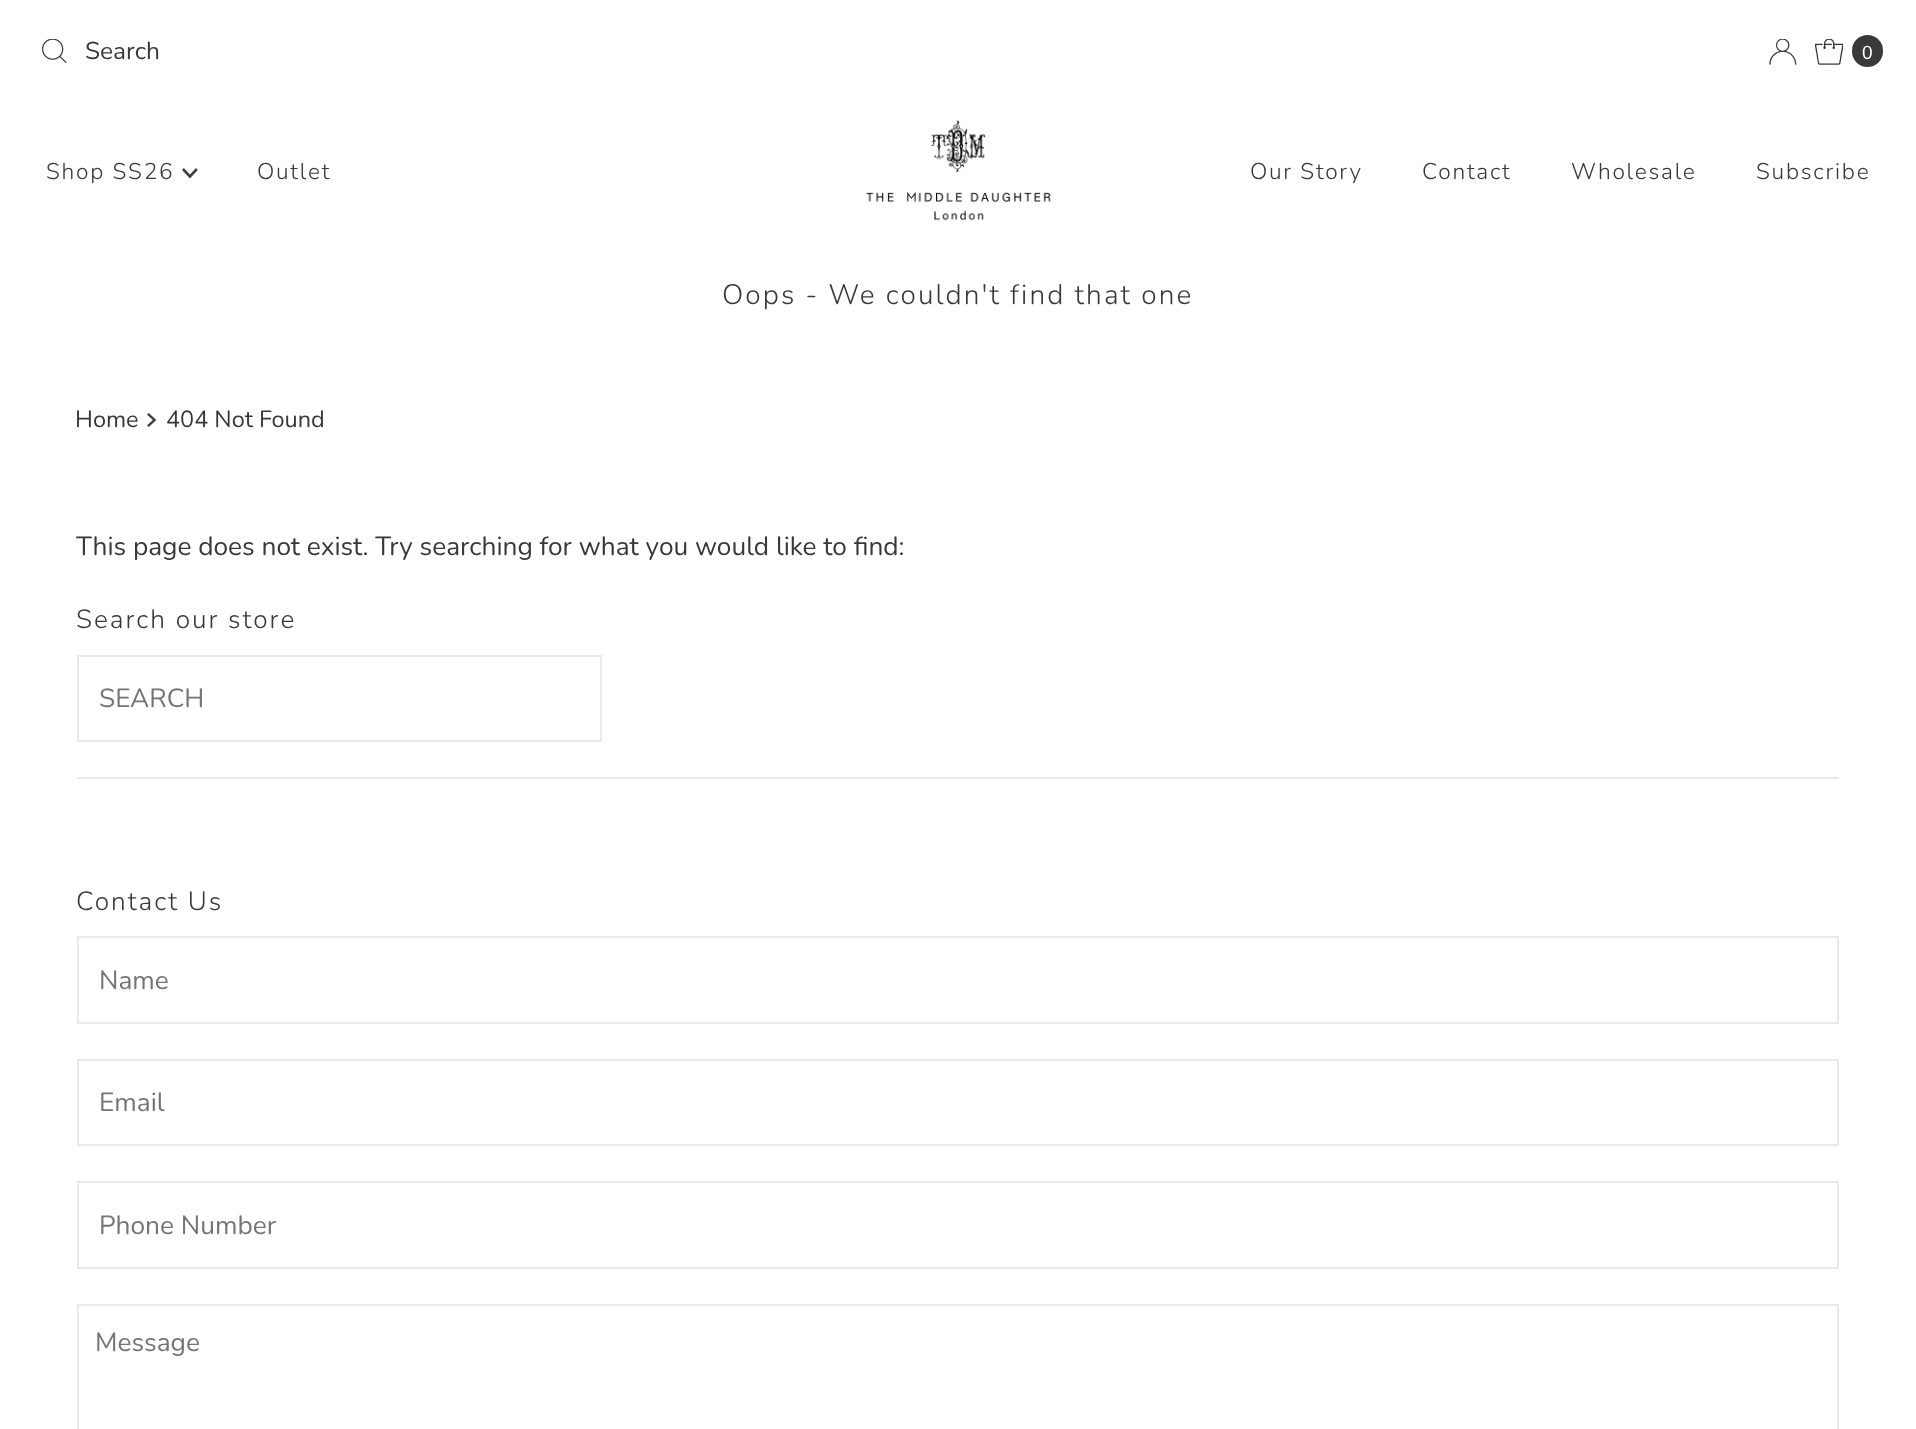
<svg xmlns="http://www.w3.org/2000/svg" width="1916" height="1429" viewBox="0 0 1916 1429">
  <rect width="100%" height="100%" fill="rgb(255,255,255)"/>
  <image x="42" y="39" width="25" height="24" href="pic1.png"/>
  <text x="85" y="59" font-family="Nunito" font-size="24.5" fill="rgb(57,57,57)">Search</text>
  <image x="1769" y="39" width="28" height="26" href="pic2.png"/>
  <image x="1815" y="39" width="28" height="26" href="pic3.png"/>
  <rect x="1852" y="35" width="31" height="32" rx="15.5" fill="rgb(57,57,57)"/>
  <text x="1862" y="59" font-family="Liberation Sans" font-size="19" fill="rgb(255,255,255)">0</text>
  <text x="46" y="179" font-family="Nunito" font-size="22.75" font-weight="300" letter-spacing="1.75" fill="rgb(57,57,57)">Shop SS26</text>
  <image x="182" y="168" width="16" height="11" href="pic4.png"/>
  <text x="257" y="179" font-family="Nunito" font-size="22.75" font-weight="300" letter-spacing="1.75" fill="rgb(57,57,57)">Outlet</text>
  <image x="865" y="120" width="186" height="101" href="pic5.png"/>
  <g font-family="Nunito" font-size="22.75" font-weight="300" letter-spacing="1.75" fill="rgb(57,57,57)">
    <text x="1250" y="179">Our Story</text>
    <text x="1422" y="179">Contact</text>
    <text x="1571" y="179">Wholesale</text>
    <text x="1756" y="179">Subscribe</text>
  </g>
  <text x="722" y="304" font-family="Nunito" font-size="28" font-weight="300" letter-spacing="2.1" fill="rgb(57,57,57)">Oops - We couldn't find that one</text>
  <text x="75" y="427" font-family="Nunito" font-size="23.5" fill="rgb(57,57,57)">Home</text>
  <image x="147" y="413" width="10" height="14" href="pic6.png"/>
  <text x="166" y="427" font-family="Nunito" font-size="23.5" fill="rgb(57,57,57)">404 Not Found</text>
  <text x="76" y="555" font-family="Nunito" font-size="26.25" fill="rgb(57,57,57)">This page does not exist. Try searching for what you would like to find:</text>
  <rect x="77" y="777" width="1762" height="2" fill="rgb(234,234,234)"/>
  <text x="76" y="628" font-family="Nunito" font-size="26.25" font-weight="300" letter-spacing="2" fill="rgb(57,57,57)">Search our store</text>
  <rect x="78" y="656" width="523" height="85" fill="none" stroke="rgb(234,234,234)" stroke-width="2"/>
  <text x="99" y="707" font-family="Nunito" font-size="26.25" fill="rgb(117,117,117)">SEARCH</text>
  <text x="76" y="910" font-family="Nunito" font-size="26.25" font-weight="300" letter-spacing="2" fill="rgb(57,57,57)">Contact Us</text>
  <rect x="78" y="937" width="1760" height="86" fill="none" stroke="rgb(234,234,234)" stroke-width="2"/>
  <text x="99" y="989" font-family="Nunito" font-size="26.25" fill="rgb(117,117,117)">Name</text>
  <rect x="78" y="1060" width="1760" height="85" fill="none" stroke="rgb(234,234,234)" stroke-width="2"/>
  <text x="99" y="1111" font-family="Nunito" font-size="26.25" fill="rgb(117,117,117)">Email</text>
  <rect x="78" y="1182" width="1760" height="86" fill="none" stroke="rgb(234,234,234)" stroke-width="2"/>
  <text x="99" y="1234" font-family="Nunito" font-size="26.25" fill="rgb(117,117,117)">Phone Number</text>
  <rect x="78" y="1305" width="1760" height="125" fill="none" stroke="rgb(234,234,234)" stroke-width="2"/>
  <text x="95" y="1351" font-family="Nunito" font-size="26.25" fill="rgb(117,117,117)">Message</text>
</svg>
